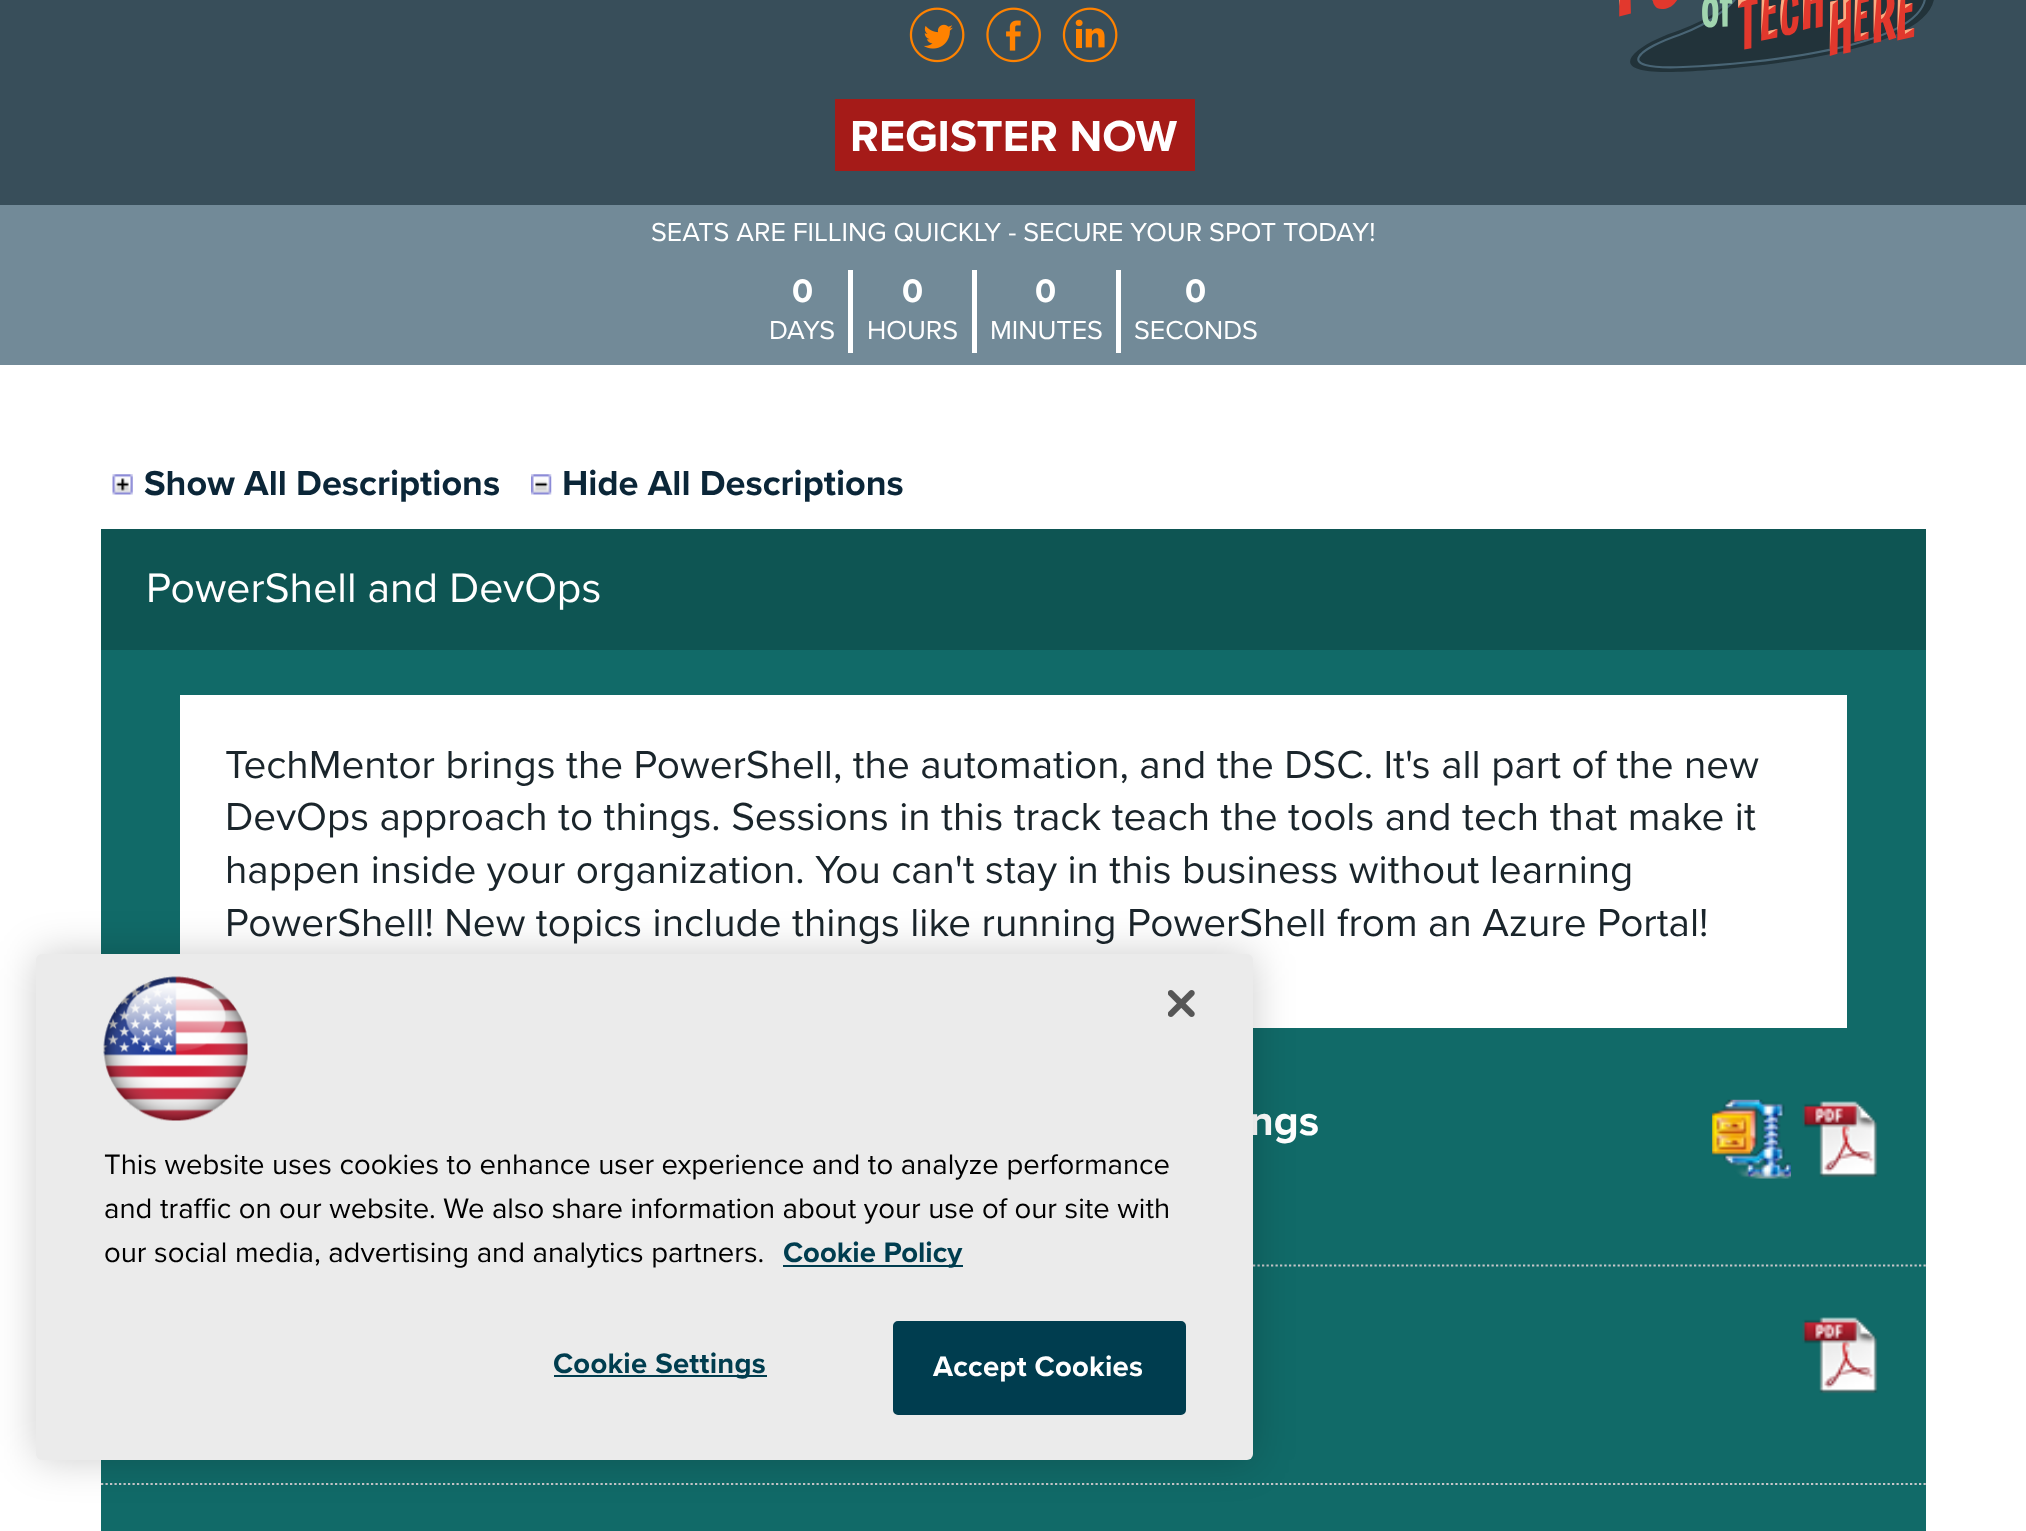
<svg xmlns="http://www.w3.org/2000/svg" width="2026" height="1531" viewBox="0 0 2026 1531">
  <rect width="100%" height="100%" fill="rgb(255,255,255)"/>
  <rect x="0" y="0" width="2026" height="205" fill="rgb(56,78,90)"/>
  <image x="909" y="7" width="56" height="56" href="pic1.png"/>
  <image x="986" y="7" width="55" height="56" href="pic2.png"/>
  <image x="1062" y="7" width="56" height="56" href="pic3.png"/>
  <image x="1619" y="0" width="315" height="72" href="pic4.png"/>
  <rect x="835" y="99" width="360" height="72" fill="rgb(165,27,24)"/>
  <text x="850" y="151" font-family="Proxima Nova" font-size="45" font-weight="bold" fill="rgb(255,255,255)">REGISTER NOW</text>
  <rect x="0" y="205" width="2026" height="160" fill="rgb(114,138,152)"/>
  <text x="651" y="241" font-family="Proxima Nova" font-size="27" fill="rgb(255,255,255)">SEATS ARE FILLING QUICKLY - SECURE YOUR SPOT TODAY!</text>
  <rect x="848" y="270" width="5" height="83" fill="rgb(255,255,255)"/>
  <text x="792" y="302" font-family="Proxima Nova" font-size="34" font-weight="bold" fill="rgb(255,255,255)">0</text>
  <text x="769" y="339" font-family="Proxima Nova" font-size="27" fill="rgb(255,255,255)">DAYS</text>
  <rect x="972" y="270" width="5" height="83" fill="rgb(255,255,255)"/>
  <text x="902" y="302" font-family="Proxima Nova" font-size="34" font-weight="bold" fill="rgb(255,255,255)">0</text>
  <text x="867" y="339" font-family="Proxima Nova" font-size="27" fill="rgb(255,255,255)">HOURS</text>
  <rect x="1116" y="270" width="5" height="83" fill="rgb(255,255,255)"/>
  <text x="1035" y="302" font-family="Proxima Nova" font-size="34" font-weight="bold" fill="rgb(255,255,255)">0</text>
  <text x="990" y="339" font-family="Proxima Nova" font-size="27" fill="rgb(255,255,255)">MINUTES</text>
  <text x="1185" y="302" font-family="Proxima Nova" font-size="34" font-weight="bold" fill="rgb(255,255,255)">0</text>
  <text x="1134" y="339" font-family="Proxima Nova" font-size="27" fill="rgb(255,255,255)">SECONDS</text>
  <image x="112" y="474" width="21" height="21" href="pic5.png"/>
  <text x="144" y="495" font-family="Proxima Nova" font-size="36" font-weight="bold" fill="rgb(11,38,56)">Show All Descriptions</text>
  <image x="531" y="474" width="21" height="21" href="pic6.png"/>
  <text x="562" y="495" font-family="Proxima Nova" font-size="36" font-weight="bold" fill="rgb(11,38,56)">Hide All Descriptions</text>
  <rect x="101" y="650" width="1825" height="881" fill="rgb(17,106,104)"/>
  <rect x="101" y="529" width="1825" height="121" fill="rgb(14,85,83)"/>
  <text x="146" y="602" font-family="Proxima Nova" font-size="42.75" fill="rgb(255,255,255)">PowerShell and DevOps</text>
  <rect x="180" y="695" width="1667" height="333" fill="rgb(255,255,255)"/>
  <g font-family="Proxima Nova" font-size="40.5" fill="rgb(26,37,43)">
    <text>
      <tspan x="225" y="778">TechMentor brings the PowerShell, the automation, and the DSC. It's all part of the new</tspan>
      <tspan x="225" y="830">DevOps approach to things. Sessions in this track teach the tools and tech that make it</tspan>
      <tspan x="225" y="883">happen inside your organization. You can't stay in this business without learning</tspan>
      <tspan x="225" y="936">PowerShell! New topics include things like running PowerShell from an Azure Portal!</tspan>
    </text>
  </g>
  <path d="M101 1265.5H1926" fill="none" stroke="rgb(199,199,202)" stroke-width="2.2" stroke-dasharray="2.25 2.25"/>
  <text x="1249" y="1135" font-family="Proxima Nova" font-size="42.75" font-weight="bold" fill="rgb(255,255,255)">ngs</text>
  <image x="1712" y="1099" width="79" height="80" href="pic7.png"/>
  <image x="1802" y="1101" width="76" height="77" href="pic8.png"/>
  <path d="M101 1484H1926" fill="none" stroke="rgb(199,199,202)" stroke-width="2.2" stroke-dasharray="2.25 2.25"/>
  <image x="1802" y="1317" width="76" height="77" href="pic8.png"/>
  <rect x="36" y="954" width="1217" height="506" rx="6" fill="rgba(0,0,0,0.2)" filter="blur(20px)"/>
  <rect x="36" y="954" width="1217" height="506" rx="6" fill="rgb(235,235,235)"/>
  <image x="1168" y="990" width="27" height="27" href="pic9.png"/>
  <image x="103" y="976" width="145" height="145" href="pic10.png"/>
  <g font-family="Proxima Nova" font-size="29.25" fill="rgb(0,0,0)">
    <text>
      <tspan x="104" y="1174">This website uses cookies to enhance user experience and to analyze performance</tspan>
      <tspan x="104" y="1218">and traffic on our website. We also share information about your use of our site with</tspan>
      <tspan x="104" y="1262">our social media, advertising and analytics partners.</tspan>
    </text>
  </g>
  <rect x="783" y="1265" width="180" height="2" fill="rgb(0,61,79)"/>
  <text x="783" y="1262" font-family="Proxima Nova" font-size="29.25" font-weight="bold" fill="rgb(0,61,79)">Cookie Policy</text>
  <rect x="554" y="1375" width="213" height="2" fill="rgb(0,61,79)"/>
  <text x="553" y="1373" font-family="Proxima Nova" font-size="29.25" font-weight="bold" letter-spacing="0.25" fill="rgb(0,61,79)">Cookie Settings</text>
  <rect x="894" y="1322" width="291" height="92" rx="4" fill="rgb(0,61,79)" stroke="rgb(0,61,79)" stroke-width="2"/>
  <text x="933" y="1376" font-family="Proxima Nova" font-size="29.25" font-weight="bold" letter-spacing="0.25" fill="rgb(255,255,255)">Accept Cookies</text>
</svg>
